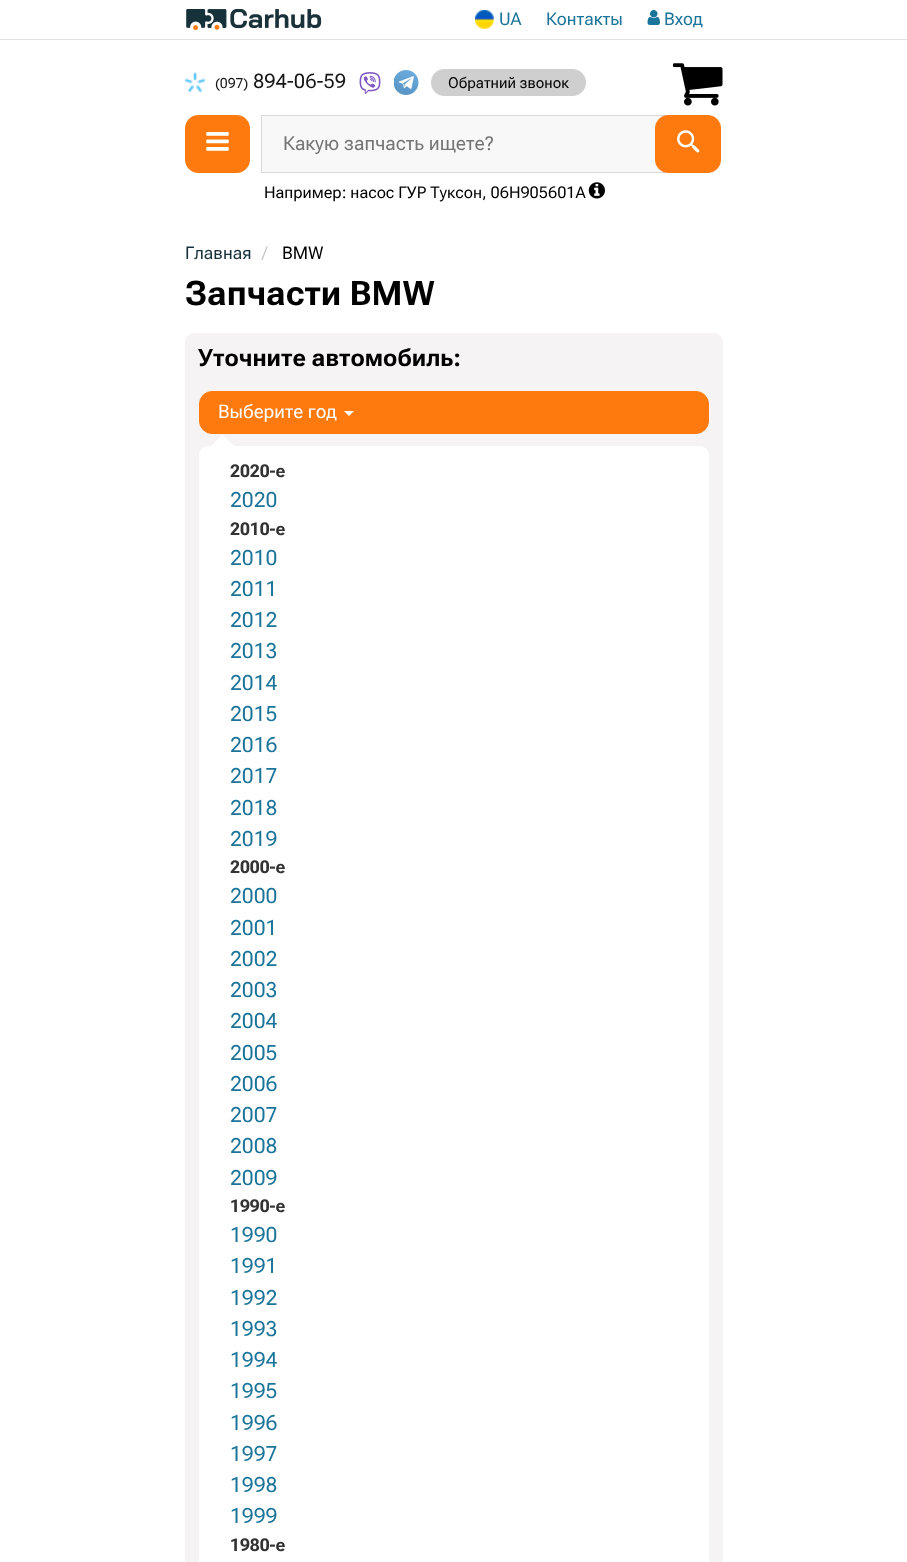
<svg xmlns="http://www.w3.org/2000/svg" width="907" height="1562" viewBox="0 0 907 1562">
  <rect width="100%" height="100%" fill="rgb(255,255,255)"/>
  <rect x="0" y="39" width="907" height="1" fill="rgb(227,227,227)"/>
  <image x="475" y="10" width="19" height="19" href="pic1.png"/>
  <g font-family="Roboto Flex" font-size="17.5" fill="rgb(27,116,153)">
    <text x="499" y="25">UA</text>
    <text x="546" y="25">Контакты</text>
  </g>
  <image x="647" y="10" width="13" height="15" href="pic2.png"/>
  <text x="664" y="25" font-family="Roboto Flex" font-size="17.5" fill="rgb(27,116,153)">Вход</text>
  <image x="186" y="9" width="136" height="21" href="pic3.png"/>
  <image x="185" y="72" width="20" height="21" href="pic4.png"/>
  <text x="215" y="88" font-family="Roboto Flex" font-size="14" fill="rgb(22,22,22)">(097)</text>
  <text x="253" y="88" font-family="Roboto Flex" font-size="20" fill="rgb(22,22,22)">894-06-59</text>
  <image x="359" y="72" width="22" height="22" href="pic5.png"/>
  <image x="394" y="70" width="25" height="25" href="pic6.png"/>
  <rect x="431.5" y="69.5" width="154" height="26" rx="12.5" fill="rgb(207,207,207)" stroke="rgb(207,207,207)"/>
  <text x="448" y="88" font-family="Roboto Flex" font-size="15" fill="rgb(0,0,0)">Обратний звонок</text>
  <image x="673" y="63" width="50" height="43" href="pic7.png"/>
  <rect x="185.5" y="115.5" width="64" height="57" rx="12.5" fill="rgb(255,122,14)" stroke="rgb(255,122,14)"/>
  <image x="206" y="132" width="23" height="19" href="pic8.png"/>
  <rect x="262" y="116" width="401" height="56" fill="rgb(248,248,248)"/>
  <rect x="261.5" y="115.5" width="404" height="57" fill="none" stroke="rgb(216,216,216)"/>
  <text x="283" y="150" font-family="Roboto Flex" font-size="19.25" fill="rgb(117,117,117)">Какую запчасть ищете?</text>
  <rect x="655.5" y="115.5" width="65" height="57" rx="12.5" fill="rgb(255,122,14)" stroke="rgb(255,122,14)"/>
  <image x="677" y="130" width="23" height="23" href="pic9.png"/>
  <text x="264" y="198" font-family="Roboto Flex" font-size="16.25" fill="rgb(0,0,0)">Например: насос ГУР Туксон, 06H905601A</text>
  <image x="588" y="182" width="17" height="17" href="pic10.png"/>
  <text x="185" y="259" font-family="Roboto Flex" font-size="17.5" fill="rgb(23,49,59)">Главная</text>
  <text x="262" y="259" font-family="Roboto Flex" font-size="17.5" fill="rgb(204,204,204)">/</text>
  <text x="282" y="259" font-family="Roboto Flex" font-size="17.5" fill="rgb(0,0,0)">BMW</text>
  <text x="185" y="305" font-family="Roboto Flex" font-size="33.75" font-weight="bold" fill="rgb(0,0,0)">Запчасти BMW</text>
  <rect x="185" y="333" width="538" height="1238" rx="9" fill="rgb(245,243,243)"/>
  <text x="198" y="366" font-family="Roboto Flex" font-size="23.75" font-weight="bold" fill="rgb(0,0,0)">Уточните автомобиль:</text>
  <rect x="199.5" y="391.5" width="509" height="42" rx="12.5" fill="rgb(255,122,14)" stroke="rgb(255,122,14)"/>
  <text x="218" y="418" font-family="Roboto Flex" font-size="18.75" fill="rgb(255,255,255)">Выберите год</text>
  <path d="M344 411H354L349 416Z" fill="rgb(255,255,255)"/>
  <rect x="199" y="446" width="510" height="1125" rx="9" fill="rgb(255,255,255)"/>
  <path d="M234 446H211L222.5 435Z" fill="rgb(255,255,255)"/>
  <text x="230" y="477" font-family="Roboto Flex" font-size="17.5" font-weight="bold" fill="rgb(50,51,50)">2020-е</text>
  <text x="230" y="507" font-family="Roboto Flex" font-size="21" fill="rgb(27,116,153)">2020</text>
  <text x="230" y="535" font-family="Roboto Flex" font-size="17.5" font-weight="bold" fill="rgb(50,51,50)">2010-е</text>
  <g font-family="Roboto Flex" font-size="21" fill="rgb(27,116,153)">
    <text>
      <tspan x="230" y="565">2010</tspan>
      <tspan x="230" y="596">2011</tspan>
      <tspan x="230" y="627">2012</tspan>
      <tspan x="230" y="658">2013</tspan>
      <tspan x="230" y="690">2014</tspan>
      <tspan x="230" y="721">2015</tspan>
      <tspan x="230" y="752">2016</tspan>
      <tspan x="230" y="783">2017</tspan>
      <tspan x="230" y="815">2018</tspan>
      <tspan x="230" y="846">2019</tspan>
    </text>
  </g>
  <text x="230" y="873" font-family="Roboto Flex" font-size="17.5" font-weight="bold" fill="rgb(50,51,50)">2000-е</text>
  <g font-family="Roboto Flex" font-size="21" fill="rgb(27,116,153)">
    <text>
      <tspan x="230" y="903">2000</tspan>
      <tspan x="230" y="935">2001</tspan>
      <tspan x="230" y="966">2002</tspan>
      <tspan x="230" y="997">2003</tspan>
      <tspan x="230" y="1028">2004</tspan>
      <tspan x="230" y="1060">2005</tspan>
      <tspan x="230" y="1091">2006</tspan>
      <tspan x="230" y="1122">2007</tspan>
      <tspan x="230" y="1153">2008</tspan>
      <tspan x="230" y="1185">2009</tspan>
    </text>
  </g>
  <text x="230" y="1212" font-family="Roboto Flex" font-size="17.5" font-weight="bold" fill="rgb(50,51,50)">1990-е</text>
  <g font-family="Roboto Flex" font-size="21" fill="rgb(27,116,153)">
    <text>
      <tspan x="230" y="1242">1990</tspan>
      <tspan x="230" y="1273">1991</tspan>
      <tspan x="230" y="1305">1992</tspan>
      <tspan x="230" y="1336">1993</tspan>
      <tspan x="230" y="1367">1994</tspan>
      <tspan x="230" y="1398">1995</tspan>
      <tspan x="230" y="1430">1996</tspan>
      <tspan x="230" y="1461">1997</tspan>
      <tspan x="230" y="1492">1998</tspan>
      <tspan x="230" y="1523">1999</tspan>
    </text>
  </g>
  <text x="230" y="1551" font-family="Roboto Flex" font-size="17.5" font-weight="bold" fill="rgb(50,51,50)">1980-е</text>
</svg>
